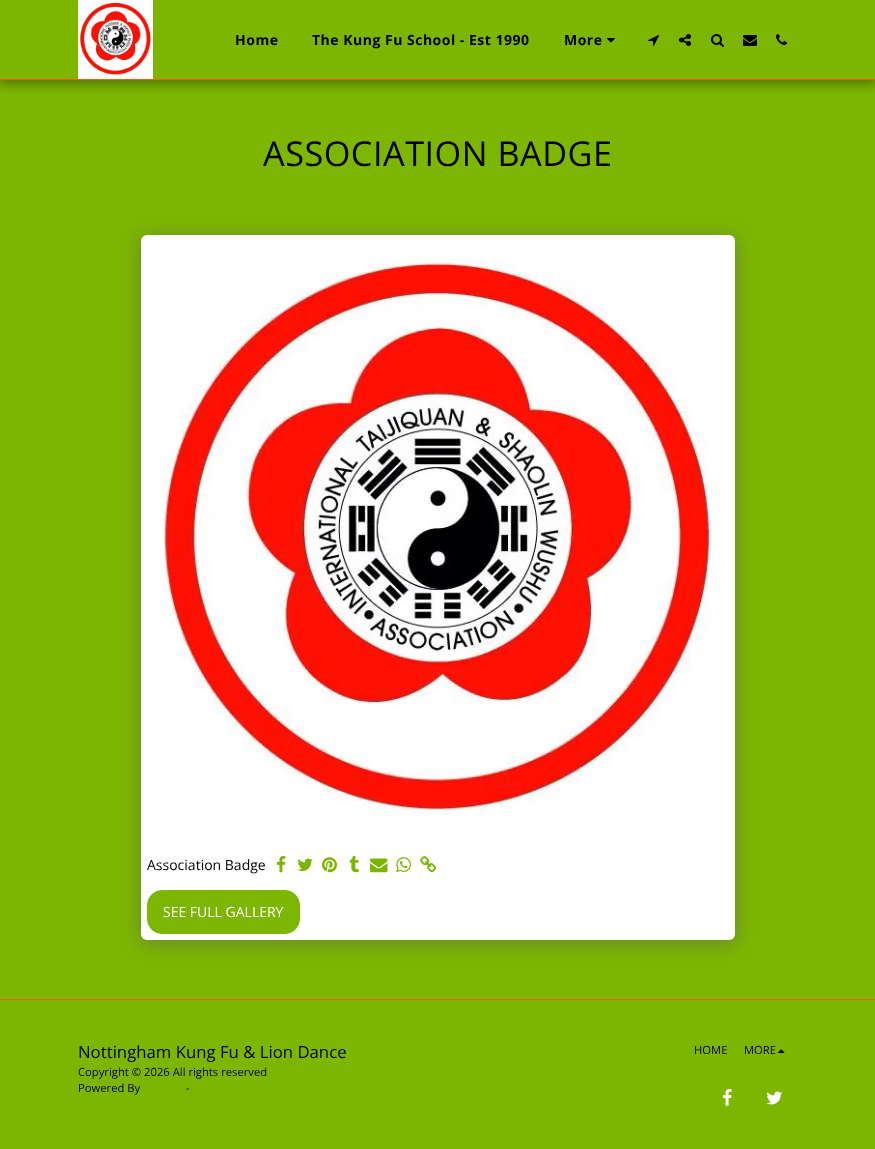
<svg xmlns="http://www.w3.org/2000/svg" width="875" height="1149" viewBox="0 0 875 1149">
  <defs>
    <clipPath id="clip1"><rect x="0" y="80" width="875" height="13"/></clipPath>
  </defs>
  <rect width="100%" height="100%" fill="rgb(124,182,0)"/>
  <g clip-path="url(#clip1)">
    <rect x="-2" y="0" width="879" height="84" fill="rgba(0,0,0,0.35)" filter="blur(6px)"/>
  </g>
  <rect x="0" y="79" width="875" height="1" fill="rgb(250,91,15)"/>
  <image x="78" y="0" width="75" height="79" href="pic1.png"/>
  <g font-family="Open Sans" font-size="14" font-weight="bold" letter-spacing="0.5" fill="rgb(0,0,0)">
    <text x="235" y="45">Home</text>
    <text x="312" y="45">The Kung Fu School - Est 1990</text>
    <text x="564" y="45">More</text>
  </g>
  <image x="607" y="38" width="8" height="5" href="pic2.png"/>
  <image x="648" y="35" width="11" height="11" href="pic3.png"/>
  <image x="679" y="34" width="12" height="12" href="pic4.png"/>
  <image x="711" y="34" width="13" height="13" href="pic5.png"/>
  <image x="743" y="35" width="14" height="11" href="pic6.png"/>
  <image x="776" y="34" width="11" height="11" href="pic7.png"/>
  <text x="263" y="166" font-family="Open Sans" font-size="34.25" letter-spacing="0.5" fill="rgb(0,0,0)">ASSOCIATION BADGE</text>
  <rect x="141" y="238" width="594" height="705" rx="6" fill="rgba(77,63,122,0.4)" filter="blur(10px)"/>
  <rect x="141" y="235" width="594" height="705" rx="6" fill="rgb(255,255,255)"/>
  <image x="163" y="258" width="552" height="559" href="pic8.png"/>
  <text x="147" y="870" font-family="Open Sans" font-size="14" fill="rgb(0,0,0)">Association Badge</text>
  <image x="276" y="856" width="10" height="17" href="pic9.png"/>
  <image x="297" y="858" width="16" height="13" href="pic10.png"/>
  <image x="322" y="857" width="15" height="16" href="pic11.png"/>
  <image x="349" y="856" width="10" height="17" href="pic12.png"/>
  <image x="370" y="858" width="18" height="15" href="pic13.png"/>
  <image x="396" y="857" width="15" height="16" href="pic14.png"/>
  <image x="420" y="856" width="16" height="17" href="pic15.png"/>
  <rect x="147.5" y="890.5" width="152" height="43" rx="14.5" fill="rgb(124,182,0)" stroke="rgb(124,182,0)"/>
  <text x="163" y="917" font-family="Open Sans" font-size="14" fill="rgb(255,255,255)">SEE FULL GALLERY</text>
  <rect x="0" y="999" width="875" height="1" fill="rgb(250,91,15)"/>
  <text x="78" y="1058" font-family="Open Sans" font-size="16.75" fill="rgb(0,0,0)">Nottingham Kung Fu &amp; Lion Dance</text>
  <g font-family="Open Sans" font-size="11.25" fill="rgb(0,0,0)">
    <text>
      <tspan x="78" y="1076">Copyright © 2026 All rights reserved</tspan>
      <tspan x="78" y="1092">Powered By</tspan>
    </text>
    <text x="186" y="1092">-</text>
    <text x="694" y="1054">HOME</text>
    <text x="744" y="1054">MORE</text>
  </g>
  <image x="778" y="1049" width="7" height="4" href="pic16.png"/>
  <image x="722" y="1089" width="10" height="17" href="pic17.png"/>
  <image x="766" y="1091" width="16" height="14" href="pic18.png"/>
</svg>
